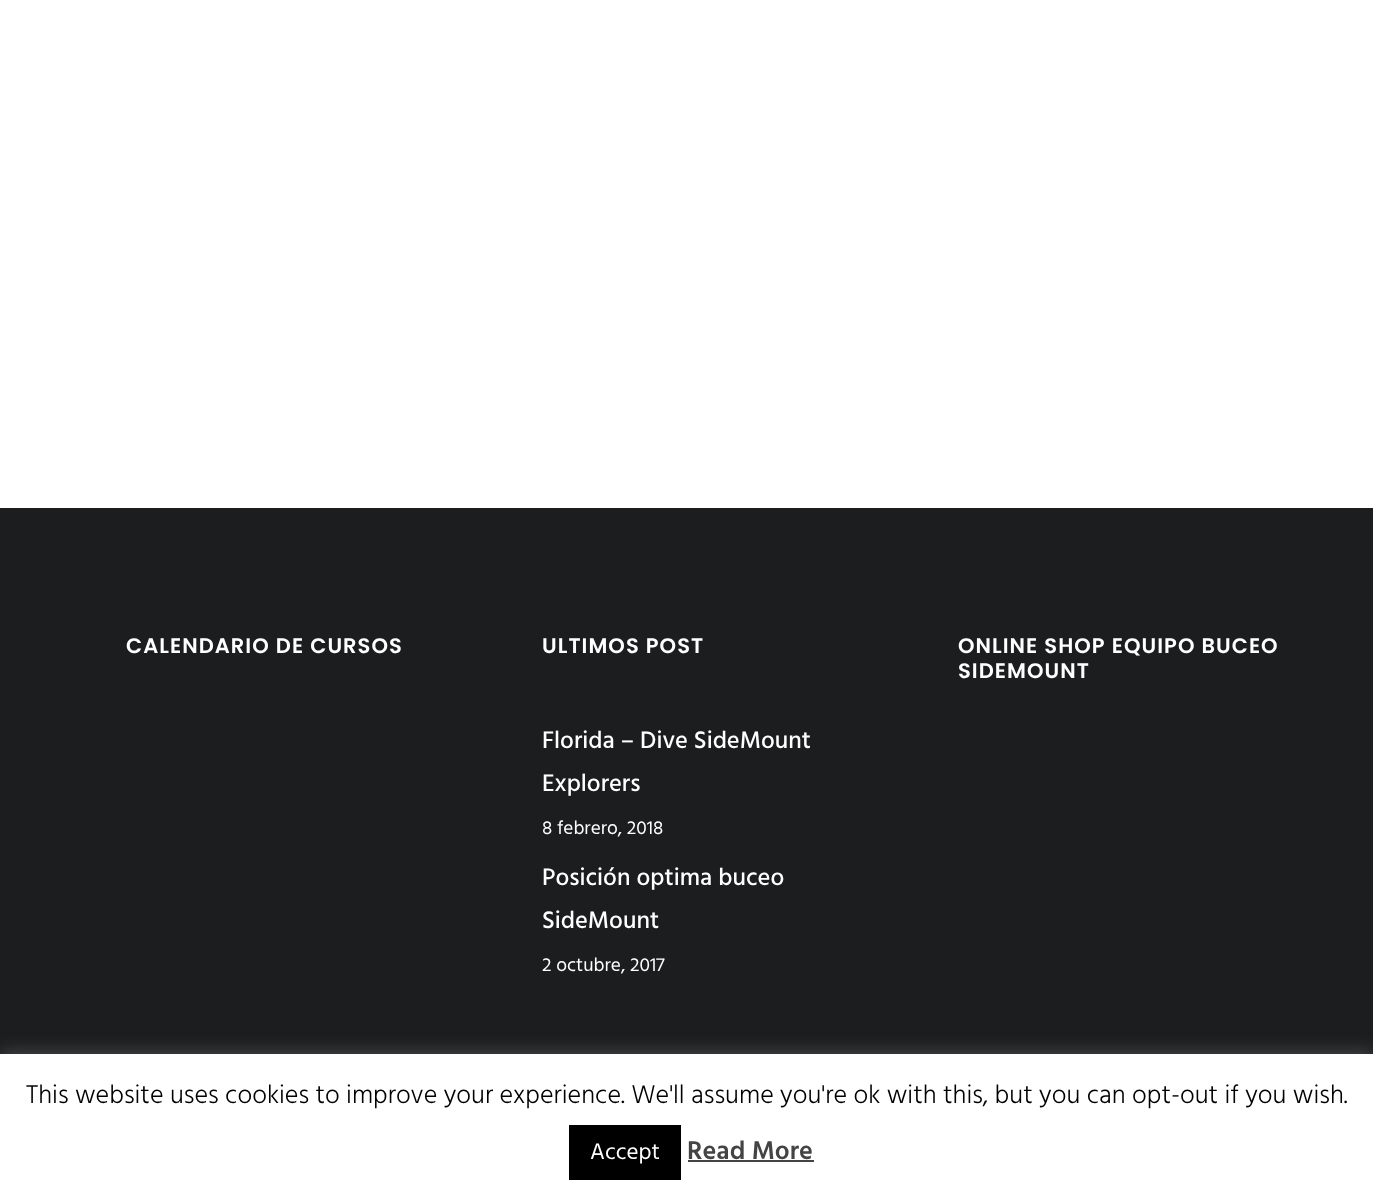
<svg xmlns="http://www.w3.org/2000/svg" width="1373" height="1200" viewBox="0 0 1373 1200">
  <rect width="100%" height="100%" fill="rgb(255,255,255)"/>
  <rect x="0" y="508" width="1373" height="546" fill="rgb(27,29,31)"/>
  <g font-family="Poppins" font-size="21" font-weight="600" letter-spacing="1.05" fill="rgb(255,255,255)">
    <text x="126" y="653">CALENDARIO DE CURSOS</text>
    <text x="542" y="653">ULTIMOS POST</text>
  </g>
  <g font-family="Hind" font-size="24.5" font-weight="500" fill="rgb(255,255,255)">
    <text>
      <tspan x="542" y="748">Florida – Dive SideMount</tspan>
      <tspan x="542" y="791">Explorers</tspan>
    </text>
  </g>
  <text x="542" y="834" font-family="Hind" font-size="19.25" fill="rgb(255,255,255)">8 febrero, 2018</text>
  <g font-family="Hind" font-size="24.5" font-weight="500" fill="rgb(255,255,255)">
    <text>
      <tspan x="542" y="885">Posición optima buceo</tspan>
      <tspan x="542" y="928">SideMount</tspan>
    </text>
  </g>
  <text x="542" y="971" font-family="Hind" font-size="19.25" fill="rgb(255,255,255)">2 octubre, 2017</text>
  <g font-family="Poppins" font-size="21" font-weight="600" letter-spacing="1.05" fill="rgb(255,255,255)">
    <text>
      <tspan x="958" y="653">ONLINE SHOP EQUIPO BUCEO</tspan>
      <tspan x="958" y="678">SIDEMOUNT</tspan>
    </text>
  </g>
  <rect x="0" y="1052" width="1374" height="147" fill="rgba(172,171,171,0.3)" filter="blur(9px)"/>
  <rect x="0" y="1054" width="1373" height="146" fill="rgb(255,255,255)"/>
  <text x="26" y="1103" font-family="Hind" font-size="26.25" font-weight="300" fill="rgb(0,0,0)">This website uses cookies to improve your experience. We'll assume you're ok with this, but you can opt-out if you wish.</text>
  <rect x="569" y="1125" width="112" height="55" fill="rgb(0,0,0)"/>
  <text x="590" y="1159" font-family="Hind" font-size="23" fill="rgb(255,255,255)">Accept</text>
  <text x="687" y="1159" font-family="Hind" font-size="26.25" font-weight="600" fill="rgb(68,68,68)">Read More</text>
  <rect x="688" y="1160" width="126" height="2" fill="rgb(68,68,68)"/>
</svg>
